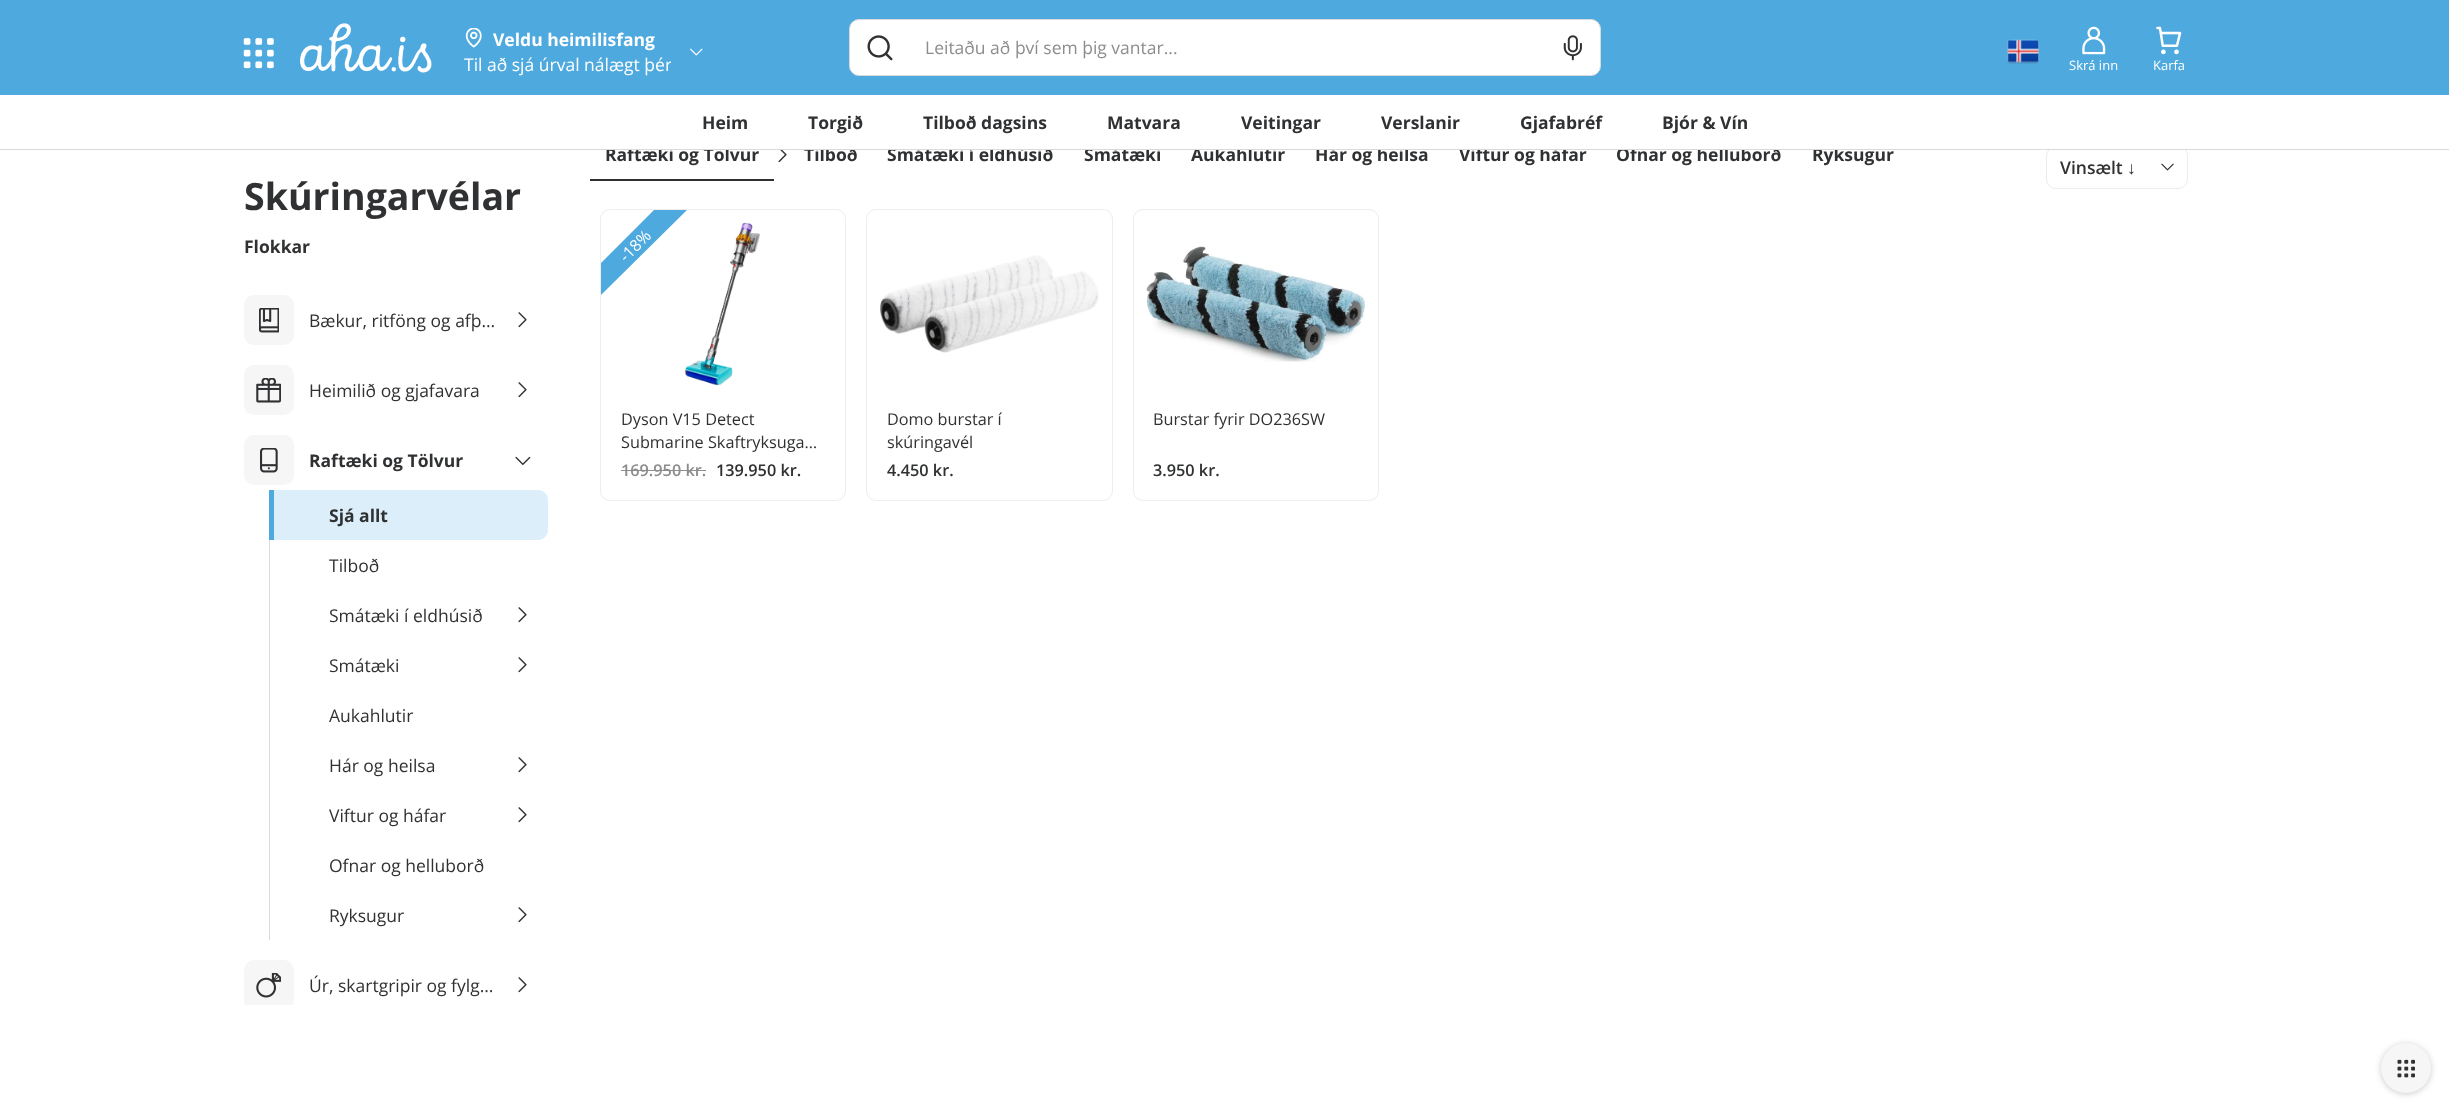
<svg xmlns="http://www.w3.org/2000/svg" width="2449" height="1104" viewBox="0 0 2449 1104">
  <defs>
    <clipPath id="clip1"><rect x="464" y="53" width="207" height="25"/></clipPath>
    <clipPath id="clip2"><rect x="244" y="236" width="309" height="769"/></clipPath>
  </defs>
  <rect width="100%" height="100%" fill="rgb(255,255,255)"/>
  <g font-family="Open Sans" font-size="17.5" font-weight="bold" fill="rgb(48,49,51)">
    <text x="605" y="161">Raftæki og Tölvur</text>
    <text x="804" y="161">Tilboð</text>
    <text x="887" y="161">Smátæki í eldhúsið</text>
    <text x="1084" y="161">Smátæki</text>
    <text x="1191" y="161">Aukahlutir</text>
    <text x="1315" y="161">Hár og heilsa</text>
    <text x="1459" y="161">Viftur og háfar</text>
    <text x="1616" y="161">Ofnar og helluborð</text>
    <text x="1812" y="161">Ryksugur</text>
  </g>
  <rect x="2046.5" y="146.5" width="141" height="42" rx="9.5" fill="none" stroke="rgb(236,236,236)"/>
  <rect x="606" y="146" width="1579" height="3" fill="rgb(255,255,255)"/>
  <rect x="0" y="0" width="2449" height="95" fill="rgb(78,169,223)"/>
  <image x="243" y="38" width="31" height="31" href="pic1.png"/>
  <image x="300" y="23" width="132" height="50" href="pic2.png"/>
  <image x="465" y="28" width="17" height="20" href="pic3.png"/>
  <text x="493" y="46" font-family="Open Sans" font-size="17.5" font-weight="bold" fill="rgb(255,255,255)">Veldu heimilisfang</text>
  <g clip-path="url(#clip1)">
    <text x="464" y="71" font-family="Open Sans" font-size="17.5" fill="rgb(255,255,255)">Til að sjá úrval nálægt þér</text>
  </g>
  <image x="690" y="48" width="13" height="8" href="pic4.png"/>
  <rect x="849.5" y="19.5" width="751" height="56" rx="9.5" fill="rgb(255,255,255)" stroke="rgb(218,218,218)"/>
  <image x="867" y="35" width="26" height="26" href="pic5.png"/>
  <text x="925" y="54" font-family="Open Sans" font-size="17.5" fill="rgb(141,141,143)">Leitaðu að því sem þig vantar...</text>
  <image x="1563" y="35" width="19" height="26" href="pic6.png"/>
  <image x="2007" y="39" width="33" height="25" href="pic7.png"/>
  <image x="2082" y="26" width="24" height="29" href="pic8.png"/>
  <text x="2069" y="70" font-family="Open Sans" font-size="13" fill="rgb(255,255,255)">Skrá inn</text>
  <image x="2156" y="26" width="26" height="29" href="pic9.png"/>
  <text x="2153" y="70" font-family="Open Sans" font-size="13" fill="rgb(255,255,255)">Karfa</text>
  <rect x="0" y="149" width="2449" height="1" fill="rgb(218,218,218)"/>
  <g font-family="Open Sans" font-size="17.5" font-weight="bold" fill="rgb(48,49,51)">
    <text x="702" y="129">Heim</text>
    <text x="808" y="129">Torgið</text>
    <text x="923" y="129">Tilboð dagsins</text>
    <text x="1107" y="129">Matvara</text>
    <text x="1241" y="129">Veitingar</text>
    <text x="1381" y="129">Verslanir</text>
    <text x="1520" y="129">Gjafabréf</text>
    <text x="1662" y="129">Bjór &amp; Vín</text>
  </g>
  <text x="244" y="210" font-family="Open Sans" font-size="37.5" font-weight="bold" fill="rgb(48,49,51)">Skúringarvélar</text>
  <text x="244" y="253" font-family="Open Sans" font-size="17.5" font-weight="bold" fill="rgb(48,49,51)">Flokkar</text>
  <rect x="244" y="295" width="50" height="50" rx="10" fill="rgb(246,246,246)"/>
  <image x="259" y="308" width="20" height="25" href="pic10.png"/>
  <text x="309" y="327" font-family="Open Sans" font-size="17.5" fill="rgb(48,49,51)">Bækur, ritföng og afþ…</text>
  <image x="518" y="312" width="9" height="16" href="pic11.png"/>
  <rect x="244" y="365" width="50" height="50" rx="10" fill="rgb(246,246,246)"/>
  <image x="256" y="378" width="25" height="25" href="pic12.png"/>
  <text x="309" y="397" font-family="Open Sans" font-size="17.5" fill="rgb(48,49,51)">Heimilið og gjafavara</text>
  <image x="518" y="382" width="9" height="16" href="pic11.png"/>
  <rect x="244" y="435" width="50" height="50" rx="10" fill="rgb(246,246,246)"/>
  <image x="260" y="448" width="18" height="25" href="pic13.png"/>
  <text x="309" y="467" font-family="Open Sans" font-size="17.5" font-weight="bold" fill="rgb(48,49,51)">Raftæki og Tölvur</text>
  <image x="515" y="456" width="16" height="9" href="pic14.png"/>
  <path d="M269 490H538C543.5 490 548 494.5 548 500V530C548 535.5 543.5 540 538 540H269Z" fill="rgb(219,238,250)"/>
  <rect x="269" y="490" width="5" height="50" fill="rgb(78,169,223)"/>
  <text x="329" y="522" font-family="Open Sans" font-size="17.5" font-weight="bold" fill="rgb(48,49,51)">Sjá allt</text>
  <rect x="269" y="540" width="1" height="400" fill="rgb(218,218,218)"/>
  <g font-family="Open Sans" font-size="17.5" fill="rgb(48,49,51)">
    <text x="329" y="572">Tilboð</text>
    <text x="329" y="622">Smátæki í eldhúsið</text>
  </g>
  <image x="518" y="607" width="9" height="16" href="pic11.png"/>
  <text x="329" y="672" font-family="Open Sans" font-size="17.5" fill="rgb(48,49,51)">Smátæki</text>
  <image x="518" y="657" width="9" height="16" href="pic11.png"/>
  <g font-family="Open Sans" font-size="17.5" fill="rgb(48,49,51)">
    <text x="329" y="722">Aukahlutir</text>
    <text x="329" y="772">Hár og heilsa</text>
  </g>
  <image x="518" y="757" width="9" height="16" href="pic11.png"/>
  <text x="329" y="822" font-family="Open Sans" font-size="17.5" fill="rgb(48,49,51)">Viftur og háfar</text>
  <image x="518" y="807" width="9" height="16" href="pic11.png"/>
  <g font-family="Open Sans" font-size="17.5" fill="rgb(48,49,51)">
    <text x="329" y="872">Ofnar og helluborð</text>
    <text x="329" y="922">Ryksugur</text>
  </g>
  <image x="518" y="907" width="9" height="16" href="pic11.png"/>
  <g clip-path="url(#clip2)">
    <rect x="244" y="960" width="50" height="50" rx="10" fill="rgb(246,246,246)"/>
  </g>
  <image x="256" y="973" width="25" height="25" href="pic15.png"/>
  <text x="309" y="992" font-family="Open Sans" font-size="17.5" fill="rgb(48,49,51)">Úr, skartgripir og fylg…</text>
  <image x="518" y="977" width="9" height="16" href="pic11.png"/>
  <rect x="590" y="179" width="184" height="2" fill="rgb(48,49,51)"/>
  <image x="778" y="150" width="9" height="13" href="pic16.png"/>
  <text x="2060" y="174" font-family="Open Sans" font-size="17.5" font-weight="600" fill="rgb(48,49,51)">Vinsælt</text>
  <text x="2127" y="174" font-family="Liberation Sans" font-size="17.5" font-weight="bold" fill="rgb(48,49,51)">↓</text>
  <image x="2161" y="163" width="13" height="8" href="pic17.png"/>
  <rect x="600.5" y="209.5" width="245" height="291" rx="9.5" fill="none" stroke="rgb(237,237,237)"/>
  <image x="685" y="222" width="75" height="164" href="pic18.png"/>
  <path d="M687 210H654L601 263V295Z" fill="rgb(78,169,223)"/>
  <text x="626" y="263" transform="rotate(-45 626 263)" font-family="Open Sans" font-size="16.25" fill="rgb(255,255,255)">-18%</text>
  <g font-family="Open Sans" font-size="16.25" fill="rgb(48,49,51)">
    <text>
      <tspan x="621" y="425">Dyson V15 Detect</tspan>
      <tspan x="621" y="448">Submarine Skaftryksuga…</tspan>
    </text>
  </g>
  <text x="621" y="476" font-family="Open Sans" font-size="16.25" font-weight="600" fill="rgb(141,141,143)">169.950 kr.</text>
  <rect x="621" y="470" width="85" height="1" fill="rgb(141,141,143)"/>
  <text x="716" y="476" font-family="Open Sans" font-size="16.25" font-weight="600" fill="rgb(48,49,51)">139.950 kr.</text>
  <rect x="866.5" y="209.5" width="246" height="291" rx="9.5" fill="none" stroke="rgb(237,237,237)"/>
  <image x="880" y="255" width="219" height="98" href="pic19.png"/>
  <g font-family="Open Sans" font-size="16.25" fill="rgb(48,49,51)">
    <text>
      <tspan x="887" y="425">Domo burstar í</tspan>
      <tspan x="887" y="448">skúringavél</tspan>
    </text>
  </g>
  <text x="887" y="476" font-family="Open Sans" font-size="16.25" font-weight="600" fill="rgb(48,49,51)">4.450 kr.</text>
  <rect x="1133.5" y="209.5" width="245" height="291" rx="9.5" fill="none" stroke="rgb(237,237,237)"/>
  <image x="1146" y="246" width="219" height="116" href="pic20.png"/>
  <text x="1153" y="425" font-family="Open Sans" font-size="16.25" fill="rgb(48,49,51)">Burstar fyrir DO236SW</text>
  <text x="1153" y="476" font-family="Open Sans" font-size="16.25" font-weight="600" fill="rgb(48,49,51)">3.950 kr.</text>
  <rect x="2381" y="1044" width="50" height="50" rx="25" fill="rgba(0,0,0,0.2)" filter="blur(3px)"/>
  <circle cx="2406" cy="1068" r="25" fill="rgb(246,246,246)"/>
  <image x="2397" y="1059" width="18" height="19" href="pic21.png"/>
</svg>
